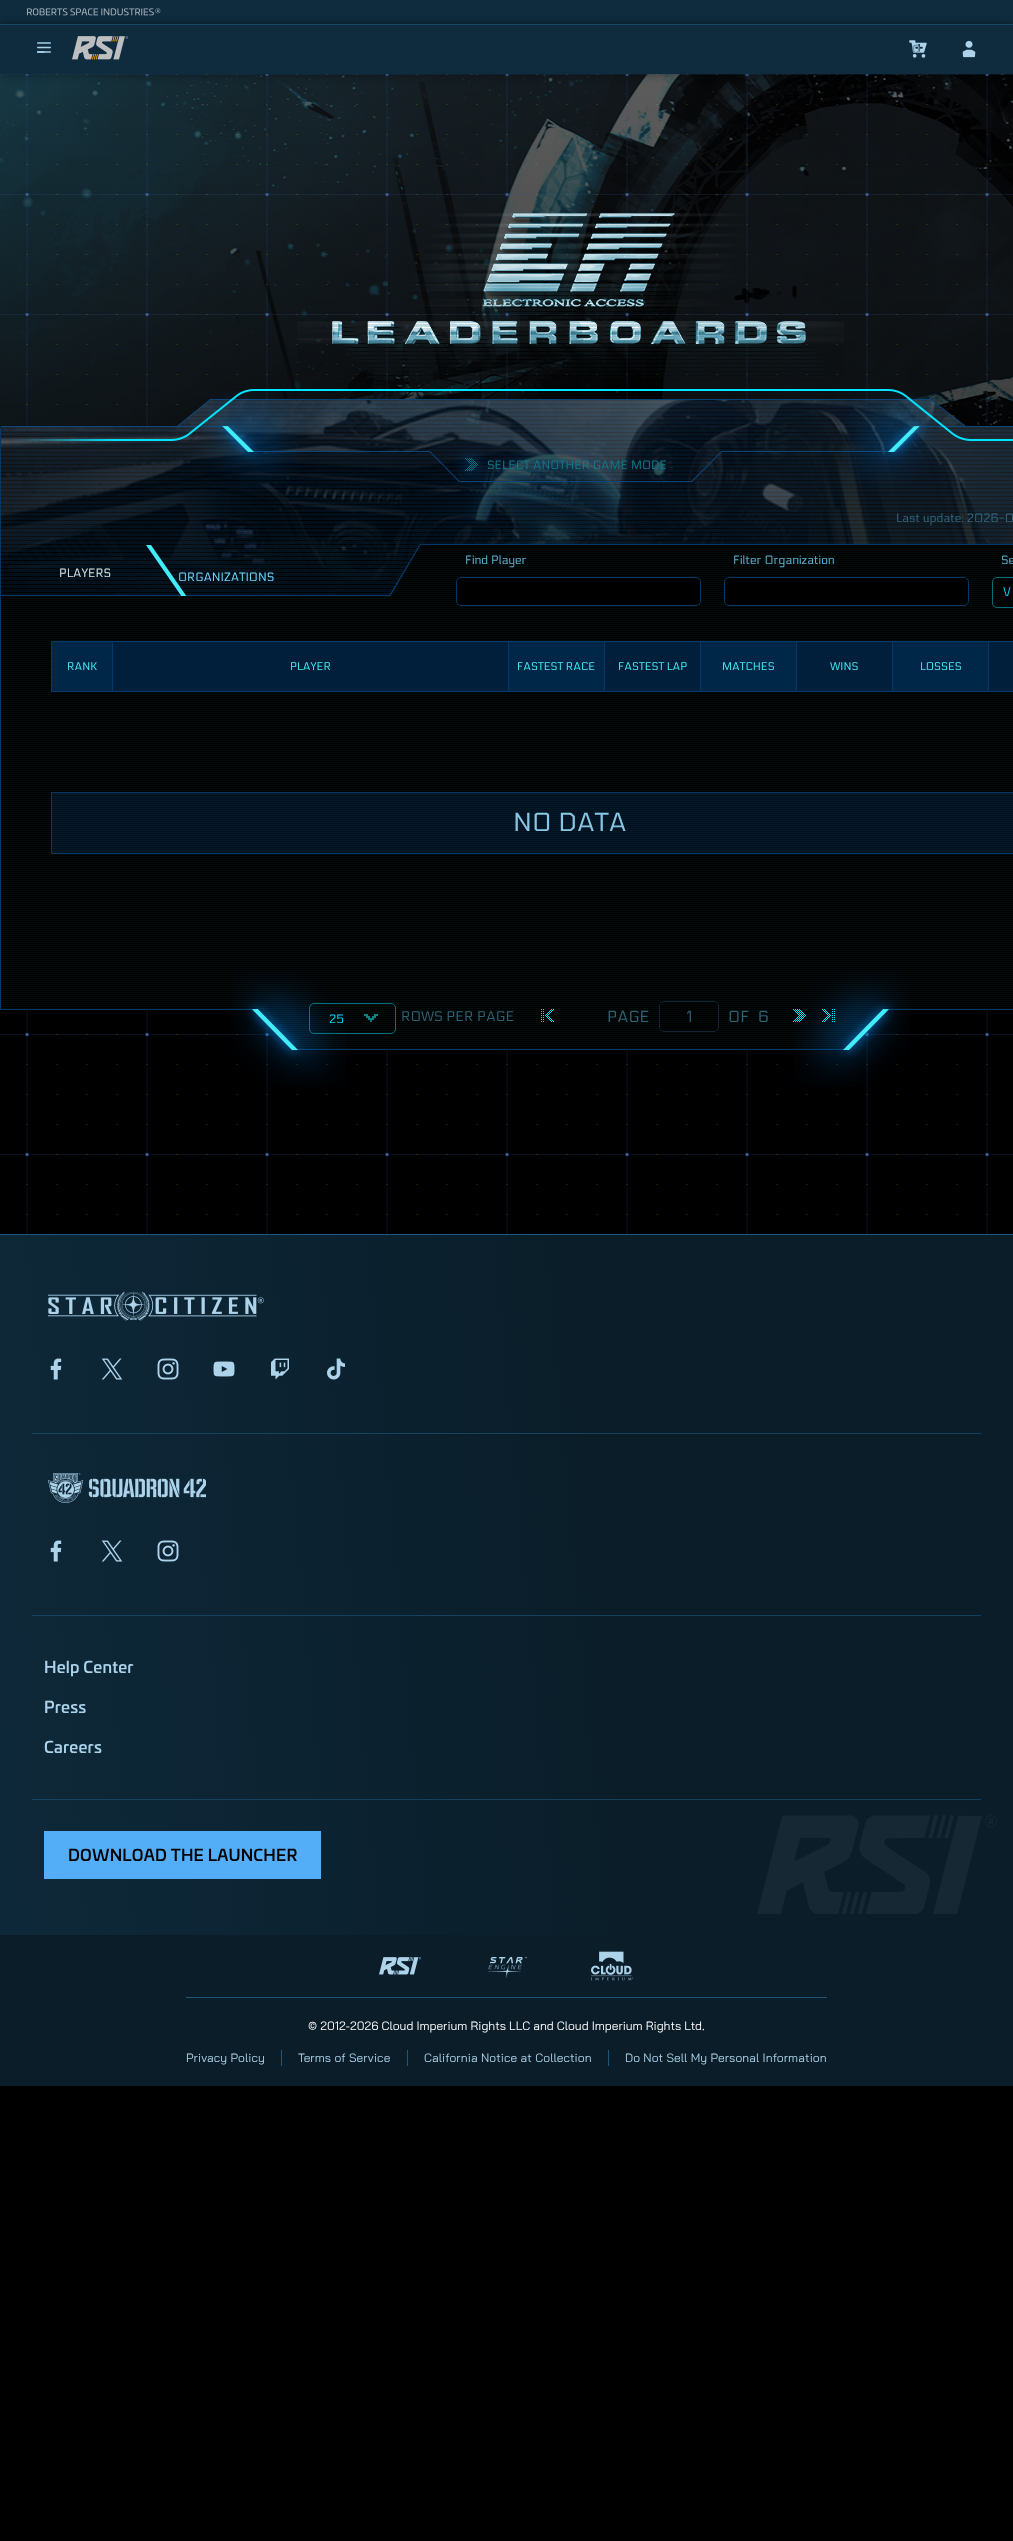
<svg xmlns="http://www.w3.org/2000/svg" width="1013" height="2541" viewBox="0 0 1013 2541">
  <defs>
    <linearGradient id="g1" gradientUnits="userSpaceOnUse" x1="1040" y1="1538" x2="-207" y2="1647"><stop offset="0.35" stop-color="rgb(10,29,41)"/><stop offset="1" stop-color="rgb(15,44,62)"/></linearGradient>
    <linearGradient id="g2" gradientUnits="userSpaceOnUse" x1="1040" y1="1538" x2="-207" y2="1647"><stop offset="0.35" stop-color="rgb(22,64,90)"/><stop offset="1" stop-color="rgb(24,70,99)"/></linearGradient>
  </defs>
  <rect width="100%" height="100%" fill="rgb(0,0,0)"/>
  <image x="0" y="74" width="1013" height="353" href="pic1.png"/>
  <rect x="0" y="0" width="1013" height="24" fill="rgb(15,44,62)"/>
  <image x="27" y="8" width="134" height="8" href="pic2.png"/>
  <image x="0" y="74" width="1013" height="1160" href="pic7.png"/>
  <rect x="0" y="24" width="1013" height="50" fill="rgba(0,0,0,0.4)" filter="blur(4px)"/>
  <rect x="0" y="25" width="1013" height="49" fill="rgb(15,44,62)"/>
  <rect x="0" y="24" width="1013" height="1" fill="rgb(25,73,103)"/>
  <image x="37" y="42" width="14" height="11" href="pic3.png"/>
  <image x="72" y="36" width="56" height="24" href="pic4.png"/>
  <image x="909" y="40" width="18" height="18" href="pic5.png"/>
  <text x="912" y="53" font-family="Bai Jamjuree" font-size="12" font-weight="bold" fill="rgb(114,149,171)">0</text>
  <image x="962" y="40" width="14" height="18" href="pic6.png"/>
  <image x="297" y="213" width="547" height="167" href="pic8.png"/>
  <rect x="1" y="427" width="1012" height="168" fill="rgb(0,0,0)"/>
  <image x="1" y="427" width="1012" height="168" href="pic9.png"/>
  <rect x="0" y="1009" width="1013" height="1" fill="rgb(2,56,103)"/>
  <rect x="0" y="427" width="1" height="583" fill="rgb(2,56,103)"/>
  <image x="1" y="399" width="1012" height="28" href="pic10.png"/>
  <image x="177" y="426" width="789" height="56" href="pic12.png"/>
  <image x="202" y="391" width="98" height="98" href="pic13.png"/>
  <image x="842" y="391" width="98" height="98" href="pic14.png"/>
  <image x="15" y="389" width="998" height="52" href="pic11.png"/>
  <image x="454" y="447" width="34" height="34" href="pic15.png"/>
  <text x="487" y="469" font-family="Electrolize" font-size="12" fill="rgb(16,121,139)">SELECT ANOTHER GAME MODE</text>
  <text x="896" y="522" font-family="Electrolize" font-size="12" fill="rgb(47,103,125)">Last update: 2026-0</text>
  <text x="59" y="577" font-family="Electrolize" font-size="12" fill="rgb(213,230,234)">PLAYERS</text>
  <text x="178" y="581" font-family="Electrolize" font-size="12" fill="rgb(111,216,255)">ORGANIZATIONS</text>
  <rect x="1" y="595" width="389" height="1" fill="rgb(2,56,103)"/>
  <image x="146" y="545" width="41" height="51" href="pic16.png"/>
  <image x="390" y="544" width="623" height="52" href="pic17.png"/>
  <text x="465" y="564" font-family="Electrolize" font-size="12" fill="rgb(89,174,205)">Find Player</text>
  <rect x="1" y="596" width="1012" height="413" fill="rgb(0,0,0)"/>
  <image x="1" y="596" width="1012" height="413" href="pic18.png"/>
  <rect x="456.5" y="577.5" width="244" height="28" rx="4.5" fill="rgb(0,0,0)" stroke="rgb(2,56,103)"/>
  <text x="733" y="564" font-family="Electrolize" font-size="12" fill="rgb(89,174,205)">Filter Organization</text>
  <rect x="724.5" y="577.5" width="244" height="28" rx="4.5" fill="rgb(0,0,0)" stroke="rgb(2,56,103)"/>
  <text x="1001" y="564" font-family="Electrolize" font-size="12" fill="rgb(89,174,205)">Se</text>
  <rect x="992" y="577" width="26" height="31" rx="5" fill="rgba(0,0,0,0.5)"/>
  <rect x="992.5" y="577.5" width="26" height="30" rx="4.5" fill="none" stroke="rgba(0,183,202,0.6)"/>
  <text x="1003" y="596" font-family="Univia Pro" font-size="12" fill="rgb(0,210,255)">V</text>
  <rect x="51.5" y="641.5" width="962" height="50" fill="rgba(2,41,81,0.7)" stroke="rgb(2,56,103)"/>
  <rect x="52" y="642" width="60" height="49" fill="rgba(2,56,103,0.3)"/>
  <text x="67" y="670" font-family="Electrolize" font-size="11" fill="rgb(70,237,243)">RANK</text>
  <rect x="112" y="642" width="1" height="49" fill="rgb(2,56,103)"/>
  <text x="290" y="670" font-family="Electrolize" font-size="11" fill="rgb(70,237,243)">PLAYER</text>
  <rect x="508" y="642" width="1" height="49" fill="rgb(2,56,103)"/>
  <rect x="509" y="642" width="95" height="49" fill="rgba(2,56,103,0.3)"/>
  <text x="517" y="670" font-family="Electrolize" font-size="11" fill="rgb(70,237,243)">FASTEST RACE</text>
  <rect x="604" y="642" width="1" height="49" fill="rgb(2,56,103)"/>
  <text x="618" y="670" font-family="Electrolize" font-size="11" fill="rgb(70,237,243)">FASTEST LAP</text>
  <rect x="701" y="642" width="95" height="49" fill="rgba(2,56,103,0.3)"/>
  <rect x="700" y="642" width="1" height="49" fill="rgb(2,56,103)"/>
  <text x="722" y="670" font-family="Electrolize" font-size="11" fill="rgb(70,237,243)">MATCHES</text>
  <rect x="796" y="642" width="1" height="49" fill="rgb(2,56,103)"/>
  <text x="830" y="670" font-family="Electrolize" font-size="11" fill="rgb(70,237,243)">WINS</text>
  <rect x="893" y="642" width="95" height="49" fill="rgba(2,56,103,0.3)"/>
  <rect x="892" y="642" width="1" height="49" fill="rgb(2,56,103)"/>
  <text x="920" y="670" font-family="Electrolize" font-size="11" fill="rgb(70,237,243)">LOSSES</text>
  <rect x="988" y="642" width="1" height="49" fill="rgb(2,56,103)"/>
  <rect x="51.5" y="792.5" width="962" height="61" fill="rgba(2,56,103,0.3)" stroke="rgb(2,56,103)"/>
  <text x="513" y="831" font-family="Electrolize" font-size="26" fill="rgb(136,198,228)">NO DATA</text>
  <image x="252" y="1009" width="637" height="41" href="pic19.png"/>
  <image x="231" y="972" width="116" height="115" href="pic20.png"/>
  <rect x="309.5" y="1003.5" width="86" height="30" rx="4.5" fill="none" stroke="rgba(0,183,202,0.6)"/>
  <text x="329" y="1023" font-family="Electrolize" font-size="12" fill="rgb(0,210,255)">25</text>
  <image x="364" y="1014" width="14" height="8" href="pic21.png"/>
  <text x="401" y="1021" font-family="Electrolize" font-size="14" fill="rgb(47,98,116)">ROWS PER PAGE</text>
  <image x="541" y="1009" width="13" height="13" href="pic22.png"/>
  <text x="607" y="1022" font-family="Electrolize" font-size="16" fill="rgb(47,98,116)">PAGE</text>
  <rect x="659" y="1001" width="60" height="31" rx="5" fill="rgba(0,0,0,0.4)"/>
  <rect x="659.5" y="1001.5" width="59" height="30" rx="4.5" fill="none" stroke="rgba(22,42,63,0.8)"/>
  <g font-family="Electrolize" font-size="16" fill="rgb(47,98,116)">
    <text x="686" y="1022">1</text>
    <text x="728" y="1022">OF</text>
    <text x="758" y="1022">6</text>
  </g>
  <image x="794" y="972" width="116" height="115" href="pic25.png"/>
  <image x="793" y="1009" width="13" height="13" href="pic23.png"/>
  <image x="822" y="1009" width="13" height="13" href="pic24.png"/>
  <rect x="0" y="1235" width="1013" height="700" fill="url(#g1)"/>
  <rect x="32" y="1799" width="949" height="1" fill="url(#g2)"/>
  <rect x="32" y="1615" width="949" height="1" fill="url(#g2)"/>
  <rect x="32" y="1433" width="949" height="1" fill="url(#g2)"/>
  <rect x="0" y="1234" width="1013" height="1" fill="rgb(30,87,123)"/>
  <image x="48" y="1291" width="216" height="30" href="pic26.png"/>
  <image x="50" y="1358" width="12" height="22" href="pic27.png"/>
  <image x="101" y="1358" width="22" height="22" href="pic28.png"/>
  <image x="157" y="1358" width="22" height="22" href="pic29.png"/>
  <image x="213" y="1361" width="22" height="16" href="pic30.png"/>
  <image x="271" y="1358" width="18" height="22" href="pic31.png"/>
  <image x="327" y="1358" width="18" height="22" href="pic32.png"/>
  <image x="48" y="1473" width="158" height="30" href="pic33.png"/>
  <image x="50" y="1540" width="12" height="22" href="pic34.png"/>
  <image x="101" y="1540" width="22" height="22" href="pic35.png"/>
  <image x="157" y="1540" width="22" height="22" href="pic36.png"/>
  <g font-family="Univia Pro" font-size="16" font-weight="500" letter-spacing="0.2" fill="rgb(173,211,235)">
    <text x="44" y="1673">Help Center</text>
    <text x="44" y="1713">Press</text>
    <text x="44" y="1753">Careers</text>
  </g>
  <rect x="44" y="1831" width="277" height="48" fill="rgb(84,173,247)"/>
  <text x="68" y="1861" font-family="Univia Pro" font-size="16" font-weight="500" letter-spacing="0.2" fill="rgb(0,0,0)">DOWNLOAD THE LAUNCHER</text>
  <image x="757" y="1815" width="240" height="99" href="pic37.png"/>
  <rect x="0" y="1935" width="1013" height="151" fill="rgb(10,29,41)"/>
  <image x="379" y="1957" width="42" height="18" href="pic38.png"/>
  <image x="488" y="1956" width="39" height="22" href="pic39.png"/>
  <image x="591" y="1951" width="42" height="30" href="pic40.png"/>
  <rect x="186" y="1997" width="641" height="1" fill="rgb(30,87,123)"/>
  <text x="308" y="2030" font-family="Bai Jamjuree" font-size="12" fill="rgb(255,255,255)">© 2012-2026 Cloud Imperium Rights LLC and Cloud Imperium Rights Ltd.</text>
  <text x="186" y="2062" font-family="Bai Jamjuree" font-size="12" letter-spacing="0.1" fill="rgb(173,211,235)">Privacy Policy</text>
  <rect x="281" y="2050" width="1" height="16" fill="rgb(30,87,123)"/>
  <text x="298" y="2062" font-family="Bai Jamjuree" font-size="12" letter-spacing="0.1" fill="rgb(173,211,235)">Terms of Service</text>
  <rect x="407" y="2050" width="1" height="16" fill="rgb(30,87,123)"/>
  <text x="424" y="2062" font-family="Bai Jamjuree" font-size="12" letter-spacing="0.1" fill="rgb(173,211,235)">California Notice at Collection</text>
  <rect x="608" y="2050" width="1" height="16" fill="rgb(30,87,123)"/>
  <text x="625" y="2062" font-family="Bai Jamjuree" font-size="12" letter-spacing="0.1" fill="rgb(173,211,235)">Do Not Sell My Personal Information</text>
</svg>
